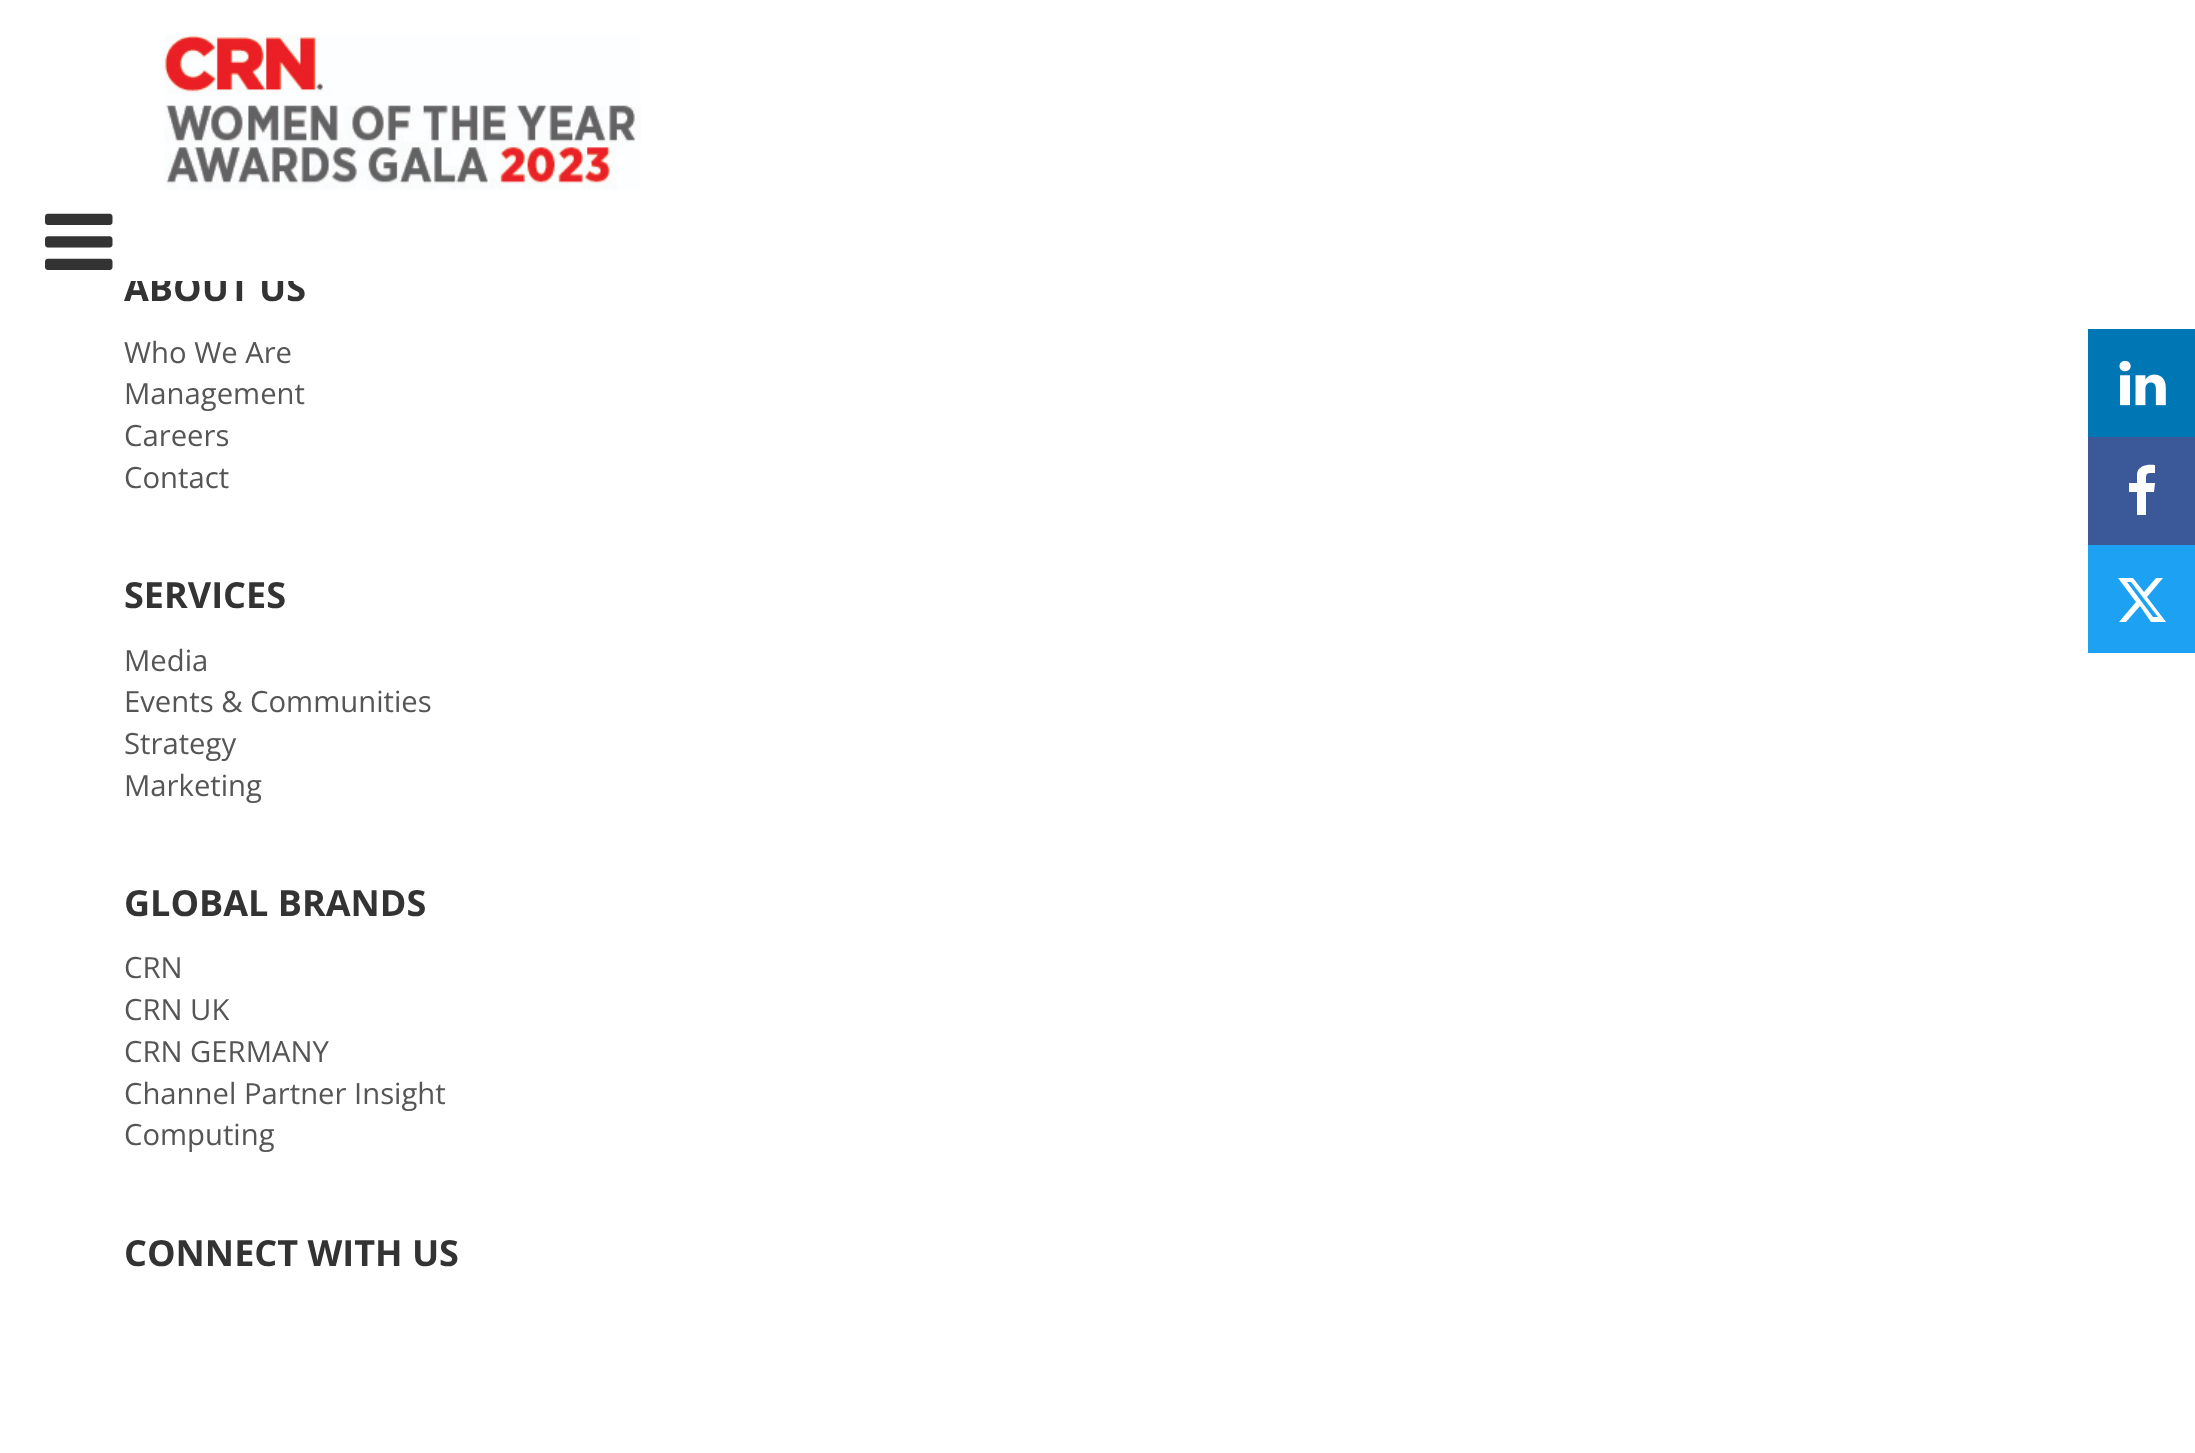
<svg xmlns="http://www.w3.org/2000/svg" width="2195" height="1453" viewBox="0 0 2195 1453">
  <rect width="100%" height="100%" fill="rgb(255,255,255)"/>
  <text x="124" y="301" font-family="Open Sans" font-size="36" font-weight="bold" fill="rgb(51,51,51)">ABOUT US</text>
  <rect x="130" y="274" width="175" height="7" fill="rgb(255,255,255)"/>
  <image x="164" y="34" width="477" height="156" href="pic1.png"/>
  <image x="45" y="213" width="68" height="57" href="pic2.png"/>
  <rect x="2088" y="329" width="107" height="108" fill="rgb(0,119,181)"/>
  <image x="2119" y="360" width="47" height="46" href="pic3.png"/>
  <rect x="2088" y="437" width="107" height="108" fill="rgb(59,89,152)"/>
  <path d="M2155 465V473C2145 473 2146 473 2146 483H2155L2154 492H2146V515H2137V492H2129V483H2137V474C2138 465 2148 464 2155 465Z" fill="rgb(255,255,255)"/>
  <rect x="2088" y="545" width="107" height="108" fill="rgb(29,161,242)"/>
  <path d="M2156 578H2163L2147 597L2166 622H2151L2140 606L2126 622H2119L2136 602L2118 578H2133L2144 592ZM2153 617H2158L2131 582H2127Z" fill="rgb(255,255,255)"/>
  <g font-family="Open Sans" font-size="29.25" fill="rgb(85,85,85)">
    <text>
      <tspan x="124" y="363">Who We Are</tspan>
      <tspan x="124" y="404">Management</tspan>
      <tspan x="124" y="446">Careers</tspan>
      <tspan x="124" y="488">Contact</tspan>
    </text>
  </g>
  <text x="124" y="608" font-family="Open Sans" font-size="36" font-weight="bold" fill="rgb(51,51,51)">SERVICES</text>
  <g font-family="Open Sans" font-size="29.25" fill="rgb(85,85,85)">
    <text>
      <tspan x="124" y="671">Media</tspan>
      <tspan x="124" y="712">Events &amp; Communities</tspan>
      <tspan x="124" y="754">Strategy</tspan>
      <tspan x="124" y="796">Marketing</tspan>
    </text>
  </g>
  <text x="124" y="916" font-family="Open Sans" font-size="36" font-weight="bold" fill="rgb(51,51,51)">GLOBAL BRANDS</text>
  <g font-family="Open Sans" font-size="29.25" fill="rgb(85,85,85)">
    <text>
      <tspan x="124" y="978">CRN</tspan>
      <tspan x="124" y="1020">CRN UK</tspan>
      <tspan x="124" y="1062">CRN GERMANY</tspan>
      <tspan x="124" y="1104">Channel Partner Insight</tspan>
      <tspan x="124" y="1145">Computing</tspan>
    </text>
  </g>
  <text x="124" y="1266" font-family="Open Sans" font-size="36" font-weight="bold" fill="rgb(51,51,51)">CONNECT WITH US</text>
</svg>
